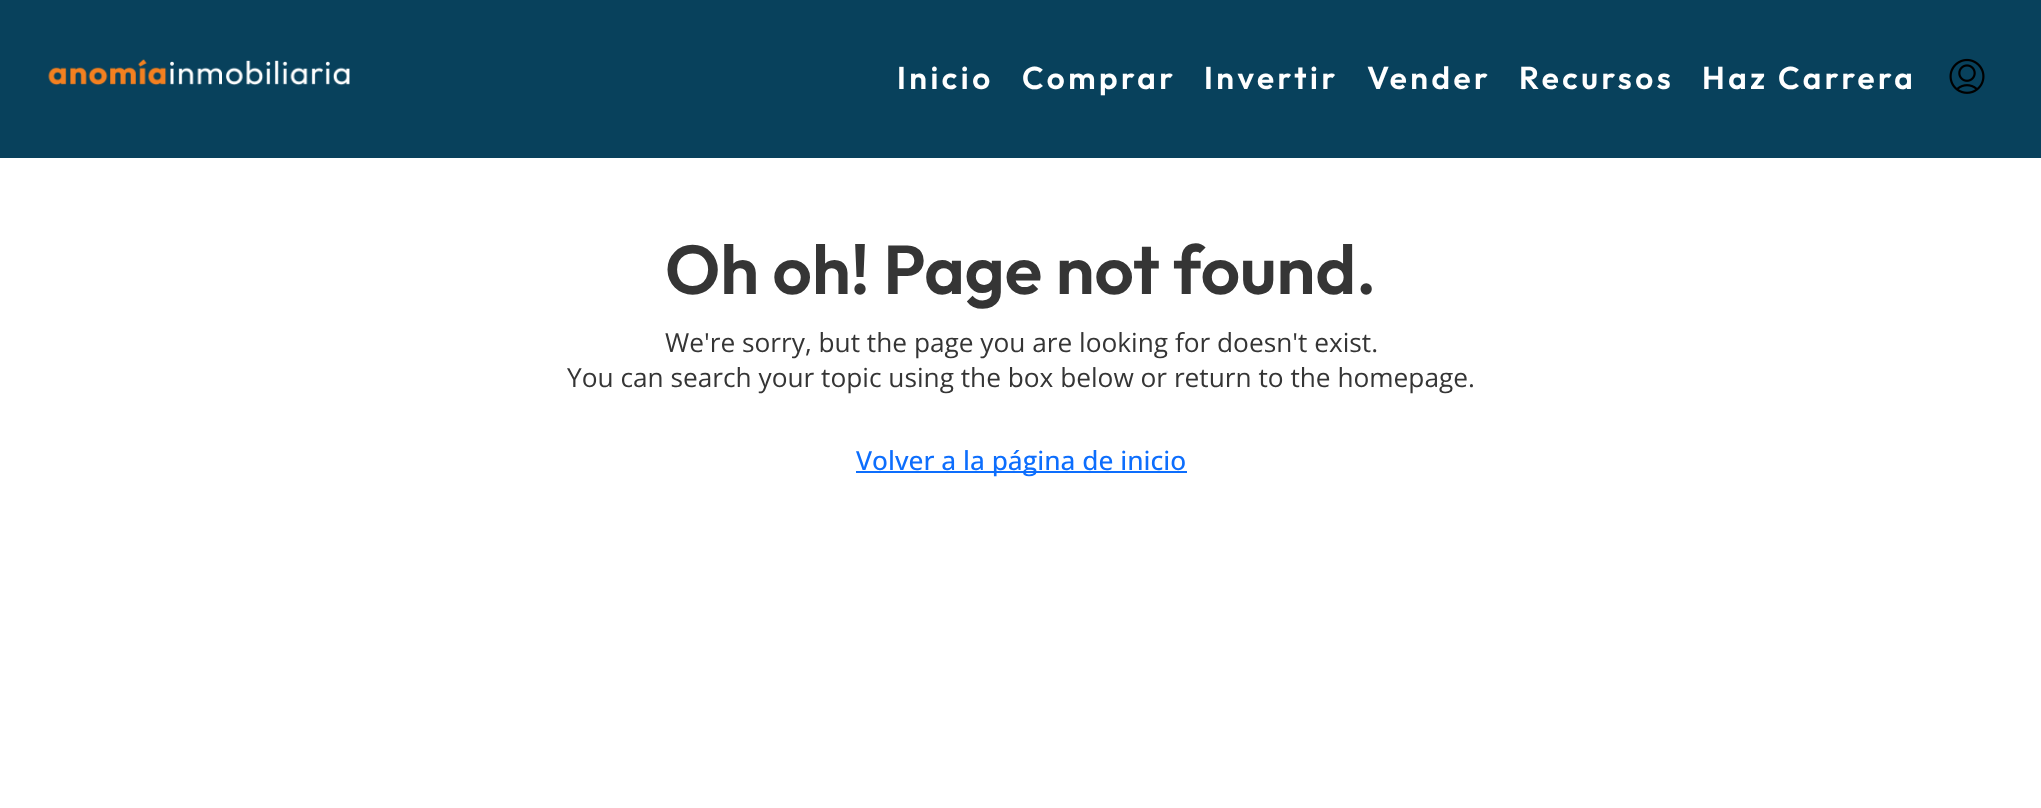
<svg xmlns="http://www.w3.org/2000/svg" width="2041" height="808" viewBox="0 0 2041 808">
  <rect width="100%" height="100%" fill="rgb(255,255,255)"/>
  <rect x="0" y="0" width="2041" height="158" fill="rgb(8,65,92)"/>
  <image x="48" y="59" width="302" height="27" href="pic1.png"/>
  <g font-family="Outfit" font-size="31.5" font-weight="600" letter-spacing="3.5" fill="rgb(255,255,255)">
    <text x="897" y="89">Inicio</text>
    <text x="1022" y="89">Comprar</text>
    <text x="1204" y="89">Invertir</text>
    <text x="1367" y="89">Vender</text>
    <text x="1519" y="89">Recursos</text>
    <text x="1702" y="89">Haz Carrera</text>
  </g>
  <image x="1949" y="58" width="36" height="36" href="pic2.png"/>
  <text x="665" y="294" font-family="Outfit" font-size="69.1" font-weight="600" fill="rgb(53,53,53)">Oh oh! Page not found.</text>
  <g font-family="Open Sans" font-size="26.25" fill="rgb(53,53,53)">
    <text x="665" y="352">We're sorry, but the page you are looking for doesn't exist.</text>
    <text x="567" y="387">You can search your topic using the box below or return to the homepage.</text>
  </g>
  <rect x="856" y="471" width="331" height="2" fill="rgb(13,110,253)"/>
  <text x="856" y="470" font-family="Open Sans" font-size="26.25" font-weight="500" fill="rgb(13,110,253)">Volver a la página de inicio</text>
</svg>
